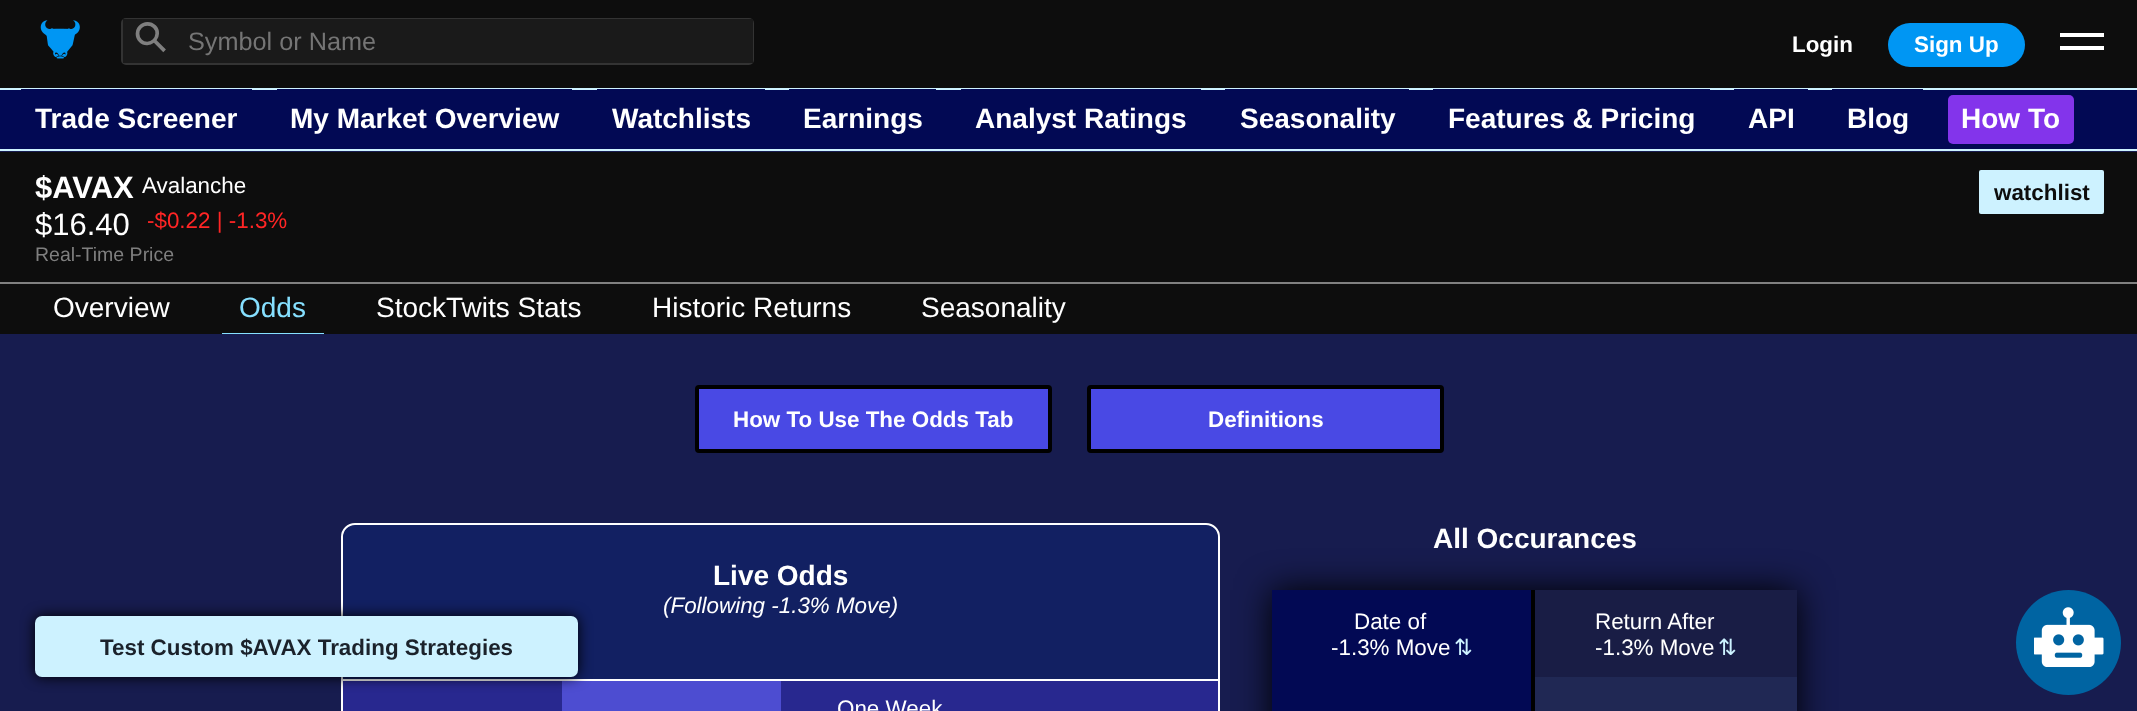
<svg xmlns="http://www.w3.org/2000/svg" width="2137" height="711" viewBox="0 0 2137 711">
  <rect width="100%" height="100%" fill="rgb(23,28,79)"/>
  <rect x="0" y="0" width="2137" height="88" fill="rgb(13,13,13)"/>
  <rect x="0" y="149" width="2137" height="2" fill="rgb(205,242,255)"/>
  <image x="40" y="20" width="40" height="39" href="pic1.png"/>
  <rect x="122" y="19" width="631" height="45" rx="4" fill="none" stroke="rgb(51,51,51)" stroke-width="2"/>
  <rect x="123" y="19" width="630" height="44" fill="rgb(26,26,26)"/>
  <text x="150" y="58" transform="rotate(-45 150 58)" font-family="DejaVu Sans" font-size="42" fill="rgb(127,127,127)">⚲</text>
  <text x="188" y="50" font-family="Liberation Sans" font-size="25.25" fill="rgb(117,117,117)">Symbol or Name</text>
  <text x="1792" y="52" font-family="Liberation Sans" font-size="22.4" font-weight="bold" fill="rgb(255,255,255)">Login</text>
  <rect x="1888" y="23" width="137" height="44" rx="22" fill="rgb(0,150,243)"/>
  <text x="1914" y="52" font-family="Liberation Sans" font-size="22.4" font-weight="bold" fill="rgb(255,255,255)">Sign Up</text>
  <rect x="2060" y="33" width="44" height="4" fill="rgb(255,255,255)"/>
  <rect x="2060" y="46" width="44" height="4" fill="rgb(255,255,255)"/>
  <rect x="0" y="90" width="2137" height="59" fill="rgb(2,9,84)"/>
  <rect x="0" y="88" width="2137" height="2" fill="rgb(205,242,255)"/>
  <rect x="21" y="89" width="231" height="1" fill="rgb(2,9,84)"/>
  <text x="35" y="128" font-family="Liberation Sans" font-size="28" font-weight="bold" fill="rgb(255,255,255)">Trade Screener</text>
  <rect x="277" y="89" width="295" height="1" fill="rgb(2,9,84)"/>
  <text x="290" y="128" font-family="Liberation Sans" font-size="28" font-weight="bold" fill="rgb(255,255,255)">My Market Overview</text>
  <rect x="597" y="89" width="168" height="1" fill="rgb(2,9,84)"/>
  <text x="612" y="128" font-family="Liberation Sans" font-size="28" font-weight="bold" fill="rgb(255,255,255)">Watchlists</text>
  <rect x="789" y="89" width="147" height="1" fill="rgb(2,9,84)"/>
  <text x="803" y="128" font-family="Liberation Sans" font-size="28" font-weight="bold" fill="rgb(255,255,255)">Earnings</text>
  <rect x="961" y="89" width="240" height="1" fill="rgb(2,9,84)"/>
  <text x="975" y="128" font-family="Liberation Sans" font-size="28" font-weight="bold" fill="rgb(255,255,255)">Analyst Ratings</text>
  <rect x="1225" y="89" width="184" height="1" fill="rgb(2,9,84)"/>
  <text x="1240" y="128" font-family="Liberation Sans" font-size="28" font-weight="bold" fill="rgb(255,255,255)">Seasonality</text>
  <rect x="1433" y="89" width="277" height="1" fill="rgb(2,9,84)"/>
  <text x="1448" y="128" font-family="Liberation Sans" font-size="28" font-weight="bold" fill="rgb(255,255,255)">Features &amp; Pricing</text>
  <rect x="1734" y="89" width="74" height="1" fill="rgb(2,9,84)"/>
  <text x="1748" y="128" font-family="Liberation Sans" font-size="28" font-weight="bold" fill="rgb(255,255,255)">API</text>
  <rect x="1832" y="89" width="91" height="1" fill="rgb(2,9,84)"/>
  <text x="1847" y="128" font-family="Liberation Sans" font-size="28" font-weight="bold" fill="rgb(255,255,255)">Blog</text>
  <rect x="1948" y="95" width="126" height="49" rx="5" fill="rgb(131,52,235)"/>
  <text x="1961" y="128" font-family="Liberation Sans" font-size="28" font-weight="bold" fill="rgb(255,255,255)">How To</text>
  <rect x="0" y="152" width="2137" height="182" fill="rgb(13,13,13)"/>
  <text x="35" y="198" font-family="Liberation Sans" font-size="31" font-weight="bold" fill="rgb(255,255,255)">$AVAX</text>
  <text x="142" y="193" font-family="Liberation Sans" font-size="22.4" fill="rgb(255,255,255)">Avalanche</text>
  <rect x="1979" y="170" width="125" height="44" rx="2" fill="rgb(205,242,255)"/>
  <text x="1994" y="200" font-family="Liberation Sans" font-size="22.4" font-weight="bold" fill="rgb(13,13,13)">watchlist</text>
  <text x="35" y="235" font-family="Liberation Sans" font-size="31" fill="rgb(255,255,255)">$16.40</text>
  <text x="147" y="228" font-family="Liberation Sans" font-size="22.4" fill="rgb(255,37,37)">-$0.22 | -1.3%</text>
  <text x="35" y="261" font-family="Liberation Sans" font-size="19.5" fill="rgb(127,127,127)">Real-Time Price</text>
  <rect x="0" y="282" width="2137" height="2" fill="rgb(128,128,128)"/>
  <text x="53" y="317" font-family="Liberation Sans" font-size="28" fill="rgb(255,255,255)">Overview</text>
  <rect x="222" y="333" width="102" height="1" fill="rgb(134,224,255)"/>
  <text x="239" y="317" font-family="Liberation Sans" font-size="28" fill="rgb(134,224,255)">Odds</text>
  <g font-family="Liberation Sans" font-size="28" fill="rgb(255,255,255)">
    <text x="376" y="317">StockTwits Stats</text>
    <text x="652" y="317">Historic Returns</text>
    <text x="921" y="317">Seasonality</text>
  </g>
  <rect x="697" y="387" width="353" height="64" rx="2" fill="rgb(73,73,228)" stroke="rgb(0,0,0)" stroke-width="4"/>
  <text x="733" y="427" font-family="Liberation Sans" font-size="22.4" font-weight="bold" fill="rgb(255,255,255)">How To Use The Odds Tab</text>
  <rect x="1089" y="387" width="353" height="64" rx="2" fill="rgb(73,73,228)" stroke="rgb(0,0,0)" stroke-width="4"/>
  <text x="1208" y="427" font-family="Liberation Sans" font-size="22.4" font-weight="bold" fill="rgb(255,255,255)">Definitions</text>
  <rect x="342" y="524" width="877" height="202" rx="13" fill="rgb(18,32,98)" stroke="rgb(255,255,255)" stroke-width="2"/>
  <rect x="343" y="679" width="875" height="2" fill="rgb(255,255,255)"/>
  <rect x="343" y="681" width="219" height="30" fill="rgb(40,40,143)"/>
  <rect x="562" y="681" width="219" height="30" fill="rgb(77,77,209)"/>
  <rect x="35" y="616" width="543" height="61" rx="7" fill="rgb(0,0,0)" filter="blur(7px)"/>
  <rect x="35" y="616" width="543" height="61" rx="7" fill="rgb(205,242,255)"/>
  <text x="100" y="655" font-family="Liberation Sans" font-size="22.4" font-weight="bold" fill="rgb(27,34,43)">Test Custom $AVAX Trading Strategies</text>
  <text x="713" y="585" font-family="Liberation Sans" font-size="28" font-weight="bold" fill="rgb(255,255,255)">Live Odds</text>
  <text x="663" y="613" font-family="Liberation Sans" font-size="22.4" font-style="italic" fill="rgb(255,255,255)">(Following -1.3% Move)</text>
  <rect x="781" y="681" width="437" height="30" fill="rgb(40,40,143)"/>
  <text x="837" y="716" font-family="Liberation Sans" font-size="22.4" fill="rgb(255,255,255)">One Week</text>
  <rect x="1272" y="590" width="525" height="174" fill="rgb(0,0,0)" filter="blur(17.5px)"/>
  <text x="1433" y="548" font-family="Liberation Sans" font-size="28" font-weight="bold" fill="rgb(255,255,255)">All Occurances</text>
  <rect x="1272" y="590" width="259" height="121" fill="rgb(2,9,84)"/>
  <rect x="1535" y="677" width="262" height="34" fill="rgb(32,40,84)"/>
  <rect x="1531" y="590" width="4" height="32" fill="rgb(0,0,0)"/>
  <g font-family="Liberation Sans" font-size="22.4" fill="rgb(255,255,255)">
    <text x="1354" y="629">Date of</text>
    <text x="1331" y="655">-1.3% Move</text>
  </g>
  <text x="1454" y="655" font-family="DejaVu Sans" font-size="22.4" fill="rgb(205,242,255)">⇅</text>
  <rect x="1535" y="590" width="262" height="87" fill="rgb(25,29,69)"/>
  <g font-family="Liberation Sans" font-size="22.4" fill="rgb(255,255,255)">
    <text>
      <tspan x="1595" y="629">Return After</tspan>
      <tspan x="1595" y="655">-1.3% Move</tspan>
    </text>
  </g>
  <text x="1718" y="655" font-family="DejaVu Sans" font-size="22.4" fill="rgb(205,242,255)">⇅</text>
  <circle cx="2068.5" cy="642.5" r="52.5" fill="rgb(0,100,162)"/>
  <image x="2034" y="607" width="70" height="60" href="pic2.png"/>
</svg>
